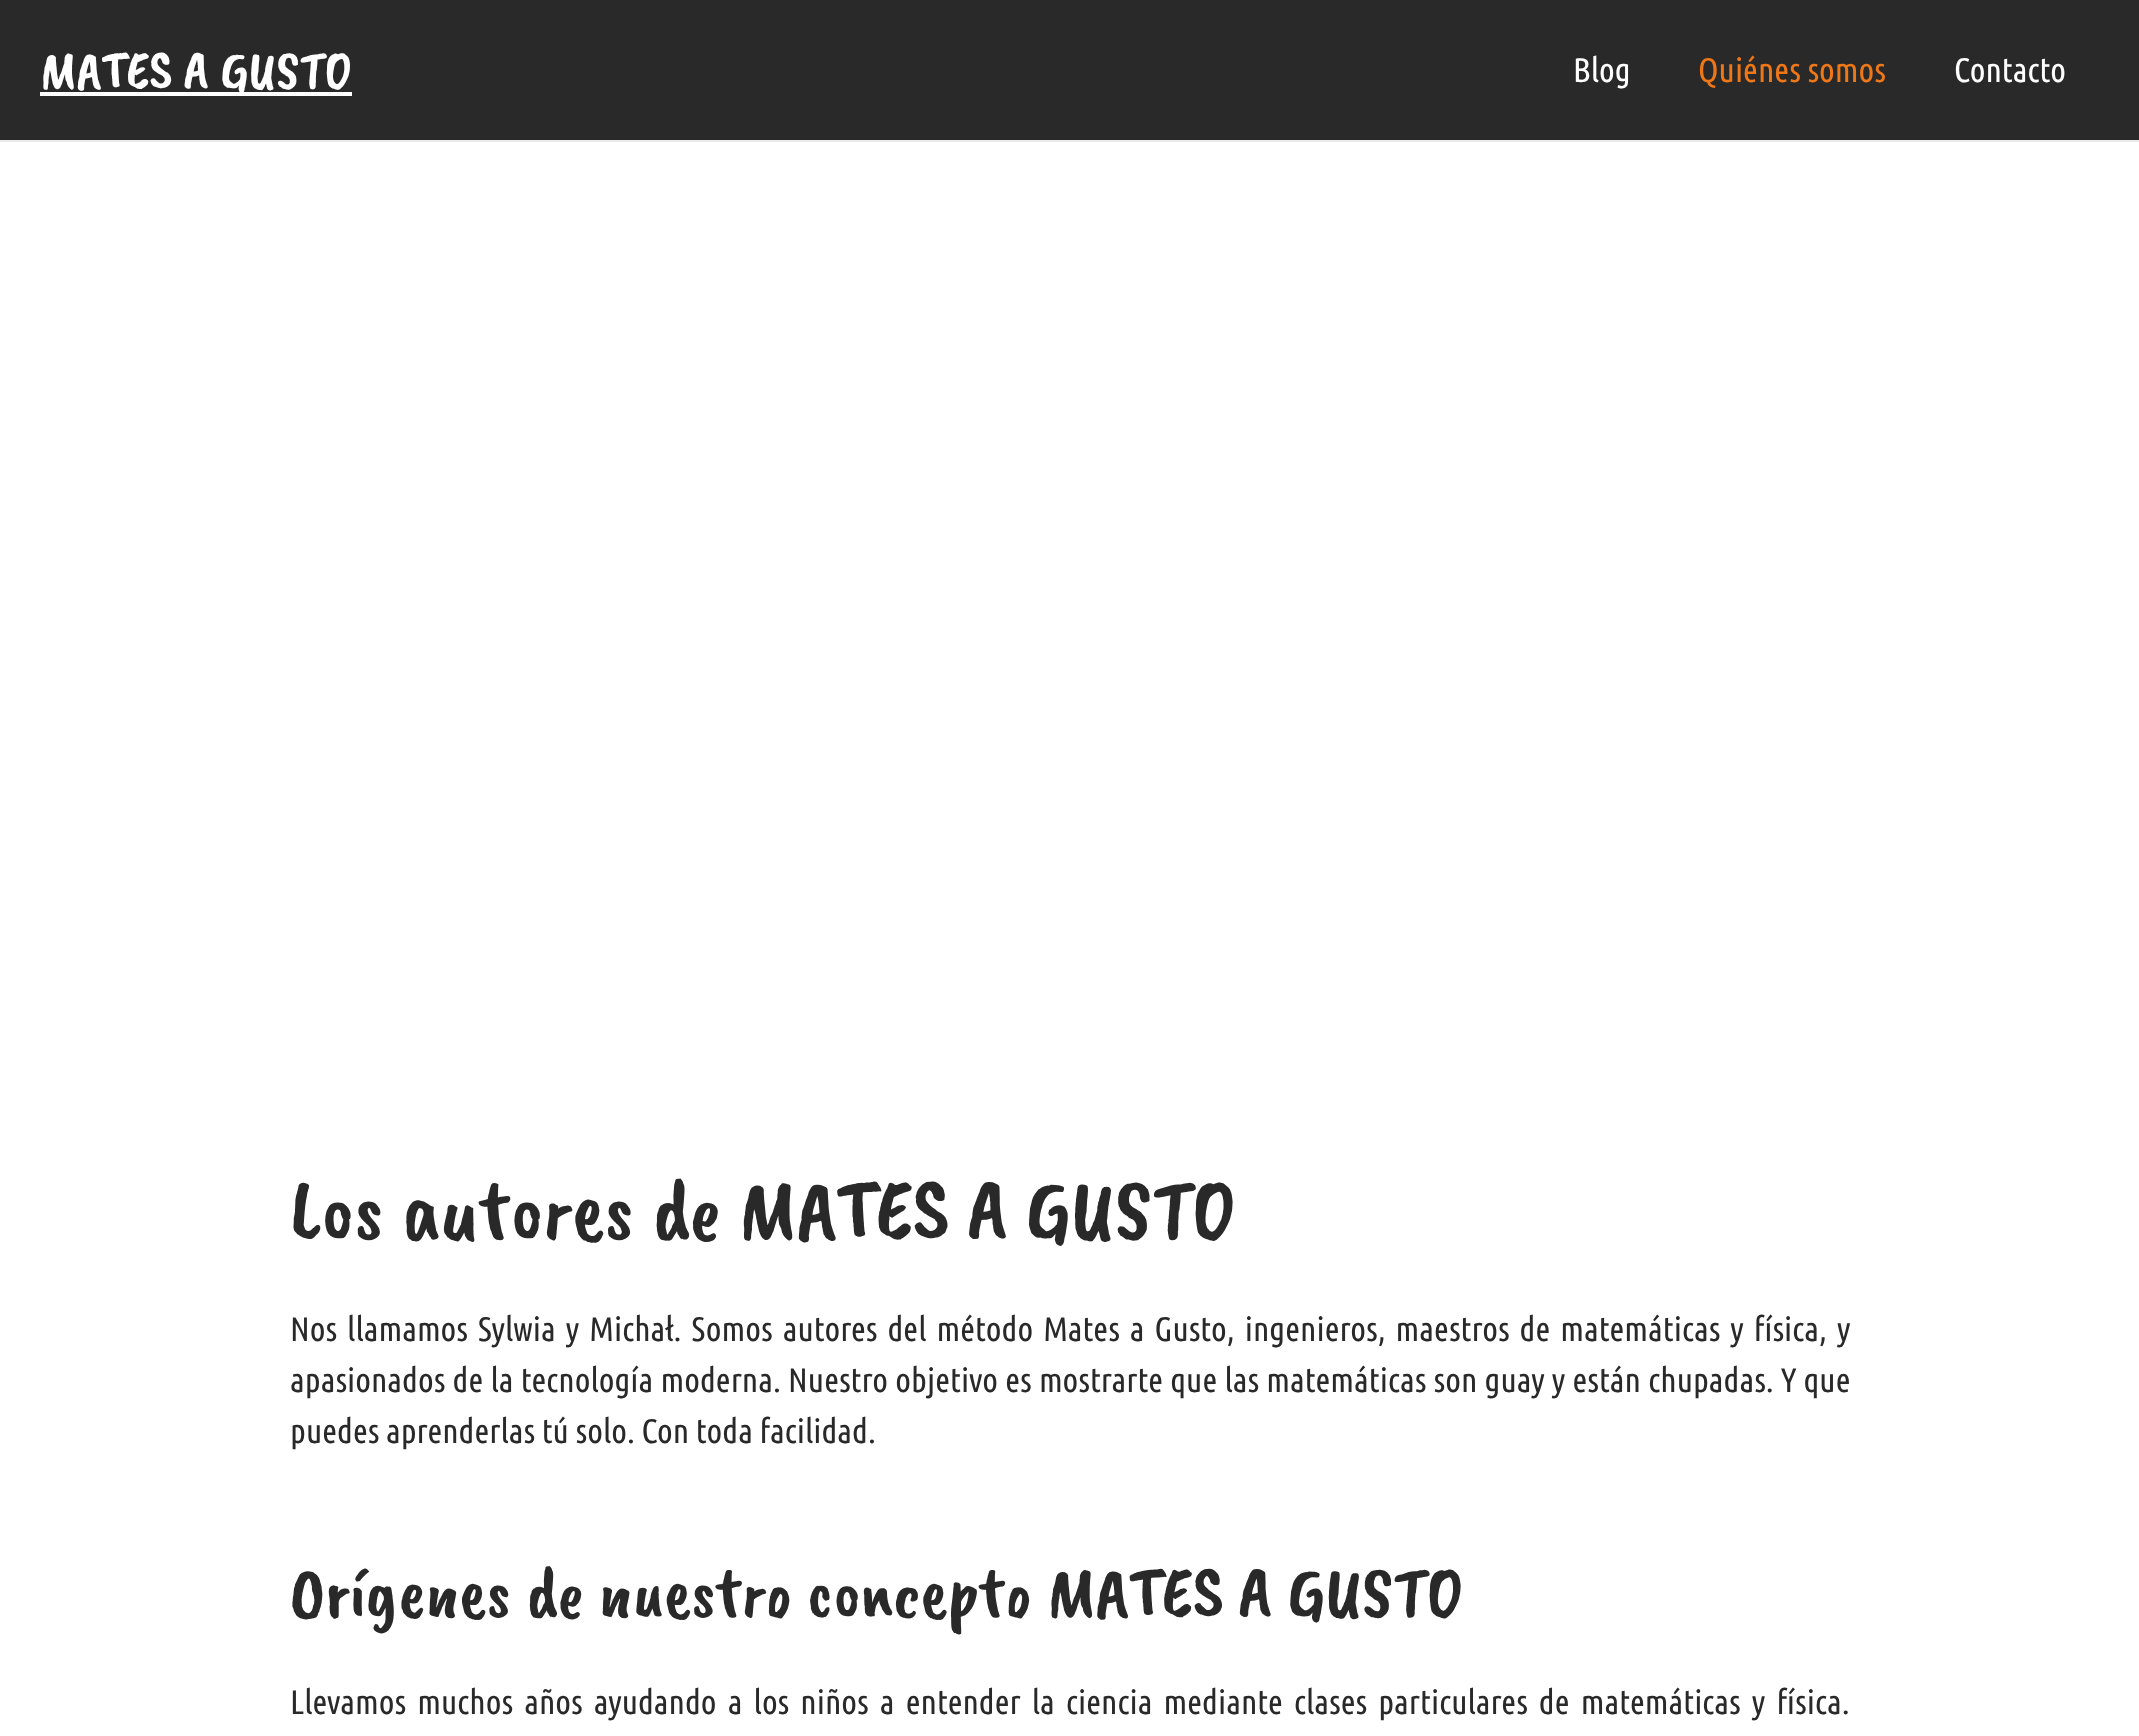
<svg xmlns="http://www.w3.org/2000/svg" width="2139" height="1736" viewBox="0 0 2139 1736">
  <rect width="100%" height="100%" fill="rgb(255,255,255)"/>
  <rect x="0" y="0" width="2139" height="140" fill="rgb(41,41,41)"/>
  <rect x="0" y="140" width="2139" height="2" fill="rgb(234,234,234)"/>
  <rect x="40" y="92" width="312" height="4" fill="rgb(255,255,255)"/>
  <text x="40" y="88" font-family="Caveat Brush" font-size="54" fill="rgb(255,255,255)">MATES A GUSTO</text>
  <text x="1573" y="82" font-family="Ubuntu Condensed" font-size="34" fill="rgb(255,255,255)">Blog</text>
  <text x="1698" y="82" font-family="Ubuntu Condensed" font-size="34" fill="rgb(238,119,24)">Quiénes somos</text>
  <text x="1954" y="82" font-family="Ubuntu Condensed" font-size="34" fill="rgb(255,255,255)">Contacto</text>
  <text x="290" y="1238" font-family="Caveat Brush" font-size="86" fill="rgb(41,41,41)">Los autores de MATES A GUSTO</text>
  <g font-family="Ubuntu Condensed" font-size="34" fill="rgb(41,41,41)">
    <text>
      <tspan x="290" y="1341" word-spacing="3.4">Nos llamamos Sylwia y Michał. Somos autores del método Mates a Gusto, ingenieros, maestros de matemáticas y física, y</tspan>
      <tspan x="290" y="1392" word-spacing="0.6">apasionados de la tecnología moderna. Nuestro objetivo es mostrarte que las matemáticas son guay y están chupadas. Y que</tspan>
      <tspan x="290" y="1443">puedes aprenderlas tú solo. Con toda facilidad.</tspan>
    </text>
  </g>
  <text x="290" y="1616" font-family="Caveat Brush" font-size="72" fill="rgb(41,41,41)">Orígenes de nuestro concepto MATES A GUSTO</text>
  <text x="290" y="1714" word-spacing="4.5" font-family="Ubuntu Condensed" font-size="34" fill="rgb(41,41,41)">Llevamos muchos años ayudando a los niños a entender la ciencia mediante clases particulares de matemáticas y física.</text>
</svg>
